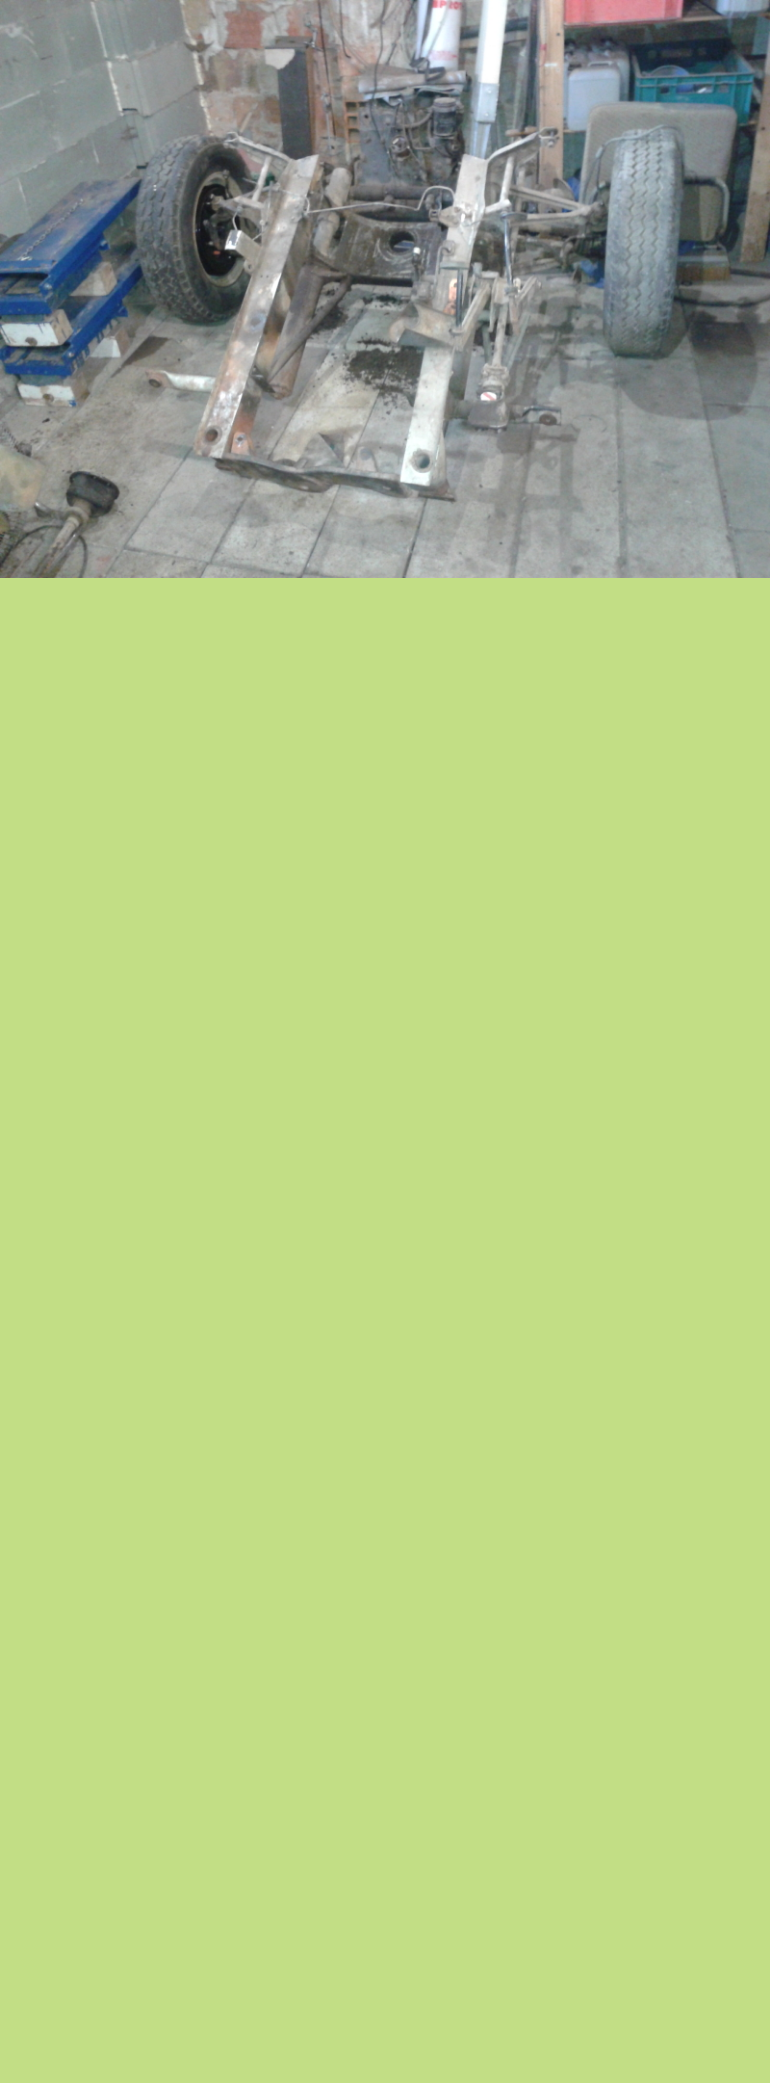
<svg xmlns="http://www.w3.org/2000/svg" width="770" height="2083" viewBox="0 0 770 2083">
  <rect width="100%" height="100%" fill="rgb(194,222,133)"/>
  <image x="0" y="0" width="770" height="578" href="pic1.png"/>
</svg>
